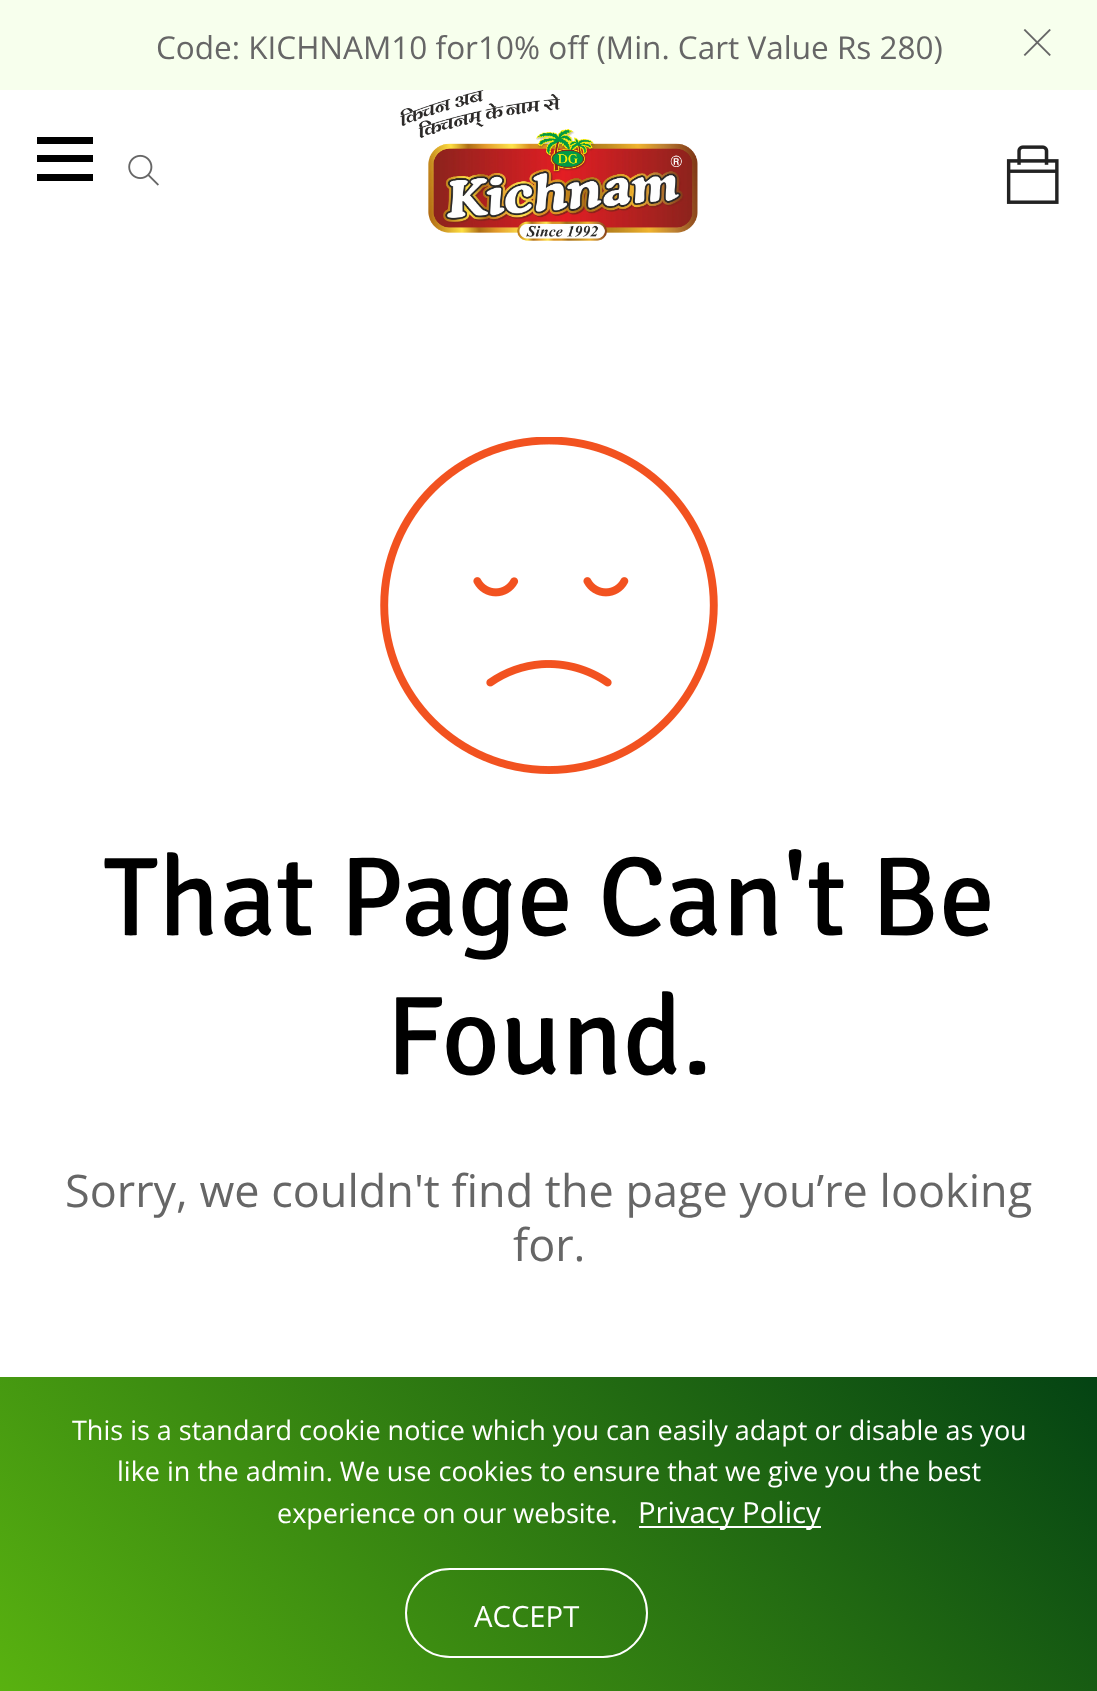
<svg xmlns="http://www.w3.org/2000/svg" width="1097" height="1691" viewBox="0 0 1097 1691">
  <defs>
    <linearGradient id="g1" gradientUnits="userSpaceOnUse" x1="196" y1="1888" x2="902" y2="1181"><stop offset="0" stop-color="rgb(89,178,16)"/><stop offset="1" stop-color="rgb(4,67,19)"/></linearGradient>
  </defs>
  <rect width="100%" height="100%" fill="rgb(255,255,255)"/>
  <rect x="0" y="0" width="1097" height="90" fill="rgb(247,255,237)"/>
  <text x="156" y="59" font-family="Open Sans" font-size="31.5" fill="rgb(102,102,102)">Code: KICHNAM10 for10% off (Min. Cart Value Rs 280)</text>
  <image x="1023" y="29" width="28" height="27" href="pic1.png"/>
  <path d="M93 137V144H37V137ZM37 162H93V155H37ZM37 181H93V174H37Z" fill="rgb(0,0,0)"/>
  <image x="128" y="154" width="31" height="32" href="pic2.png"/>
  <image x="400" y="90" width="298" height="151" href="pic3.png"/>
  <image x="1006" y="145" width="53" height="59" href="pic4.png"/>
  <image x="380" y="437" width="338" height="337" href="pic5.png"/>
  <g font-family="Signika" font-size="112.5" fill="rgb(0,0,0)">
    <text x="103" y="935">That Page Can't Be</text>
    <text x="386" y="1074">Found.</text>
  </g>
  <g font-family="Open Sans" font-size="45" fill="rgb(102,102,102)">
    <text x="65" y="1207">Sorry, we couldn't find the page you’re looking</text>
    <text x="513" y="1261">for.</text>
  </g>
  <rect x="0" y="1377" width="1097" height="314" fill="url(#g1)"/>
  <g font-family="Open Sans" font-size="27" fill="rgb(255,255,255)">
    <text x="72" y="1440">This is a standard cookie notice which you can easily adapt or disable as you</text>
    <text x="117" y="1481">like in the admin. We use cookies to ensure that we give you the best</text>
    <text x="277" y="1523">experience on our website.</text>
  </g>
  <rect x="639" y="1526" width="182" height="2" fill="rgb(255,255,255)"/>
  <text x="638" y="1523" font-family="Open Sans" font-size="29.25" fill="rgb(255,255,255)">Privacy Policy</text>
  <rect x="406" y="1569" width="241" height="88" rx="44" fill="none" stroke="rgb(255,255,255)" stroke-width="2"/>
  <text x="474" y="1627" font-family="Open Sans" font-size="29.25" fill="rgb(255,255,255)">ACCEPT</text>
</svg>
